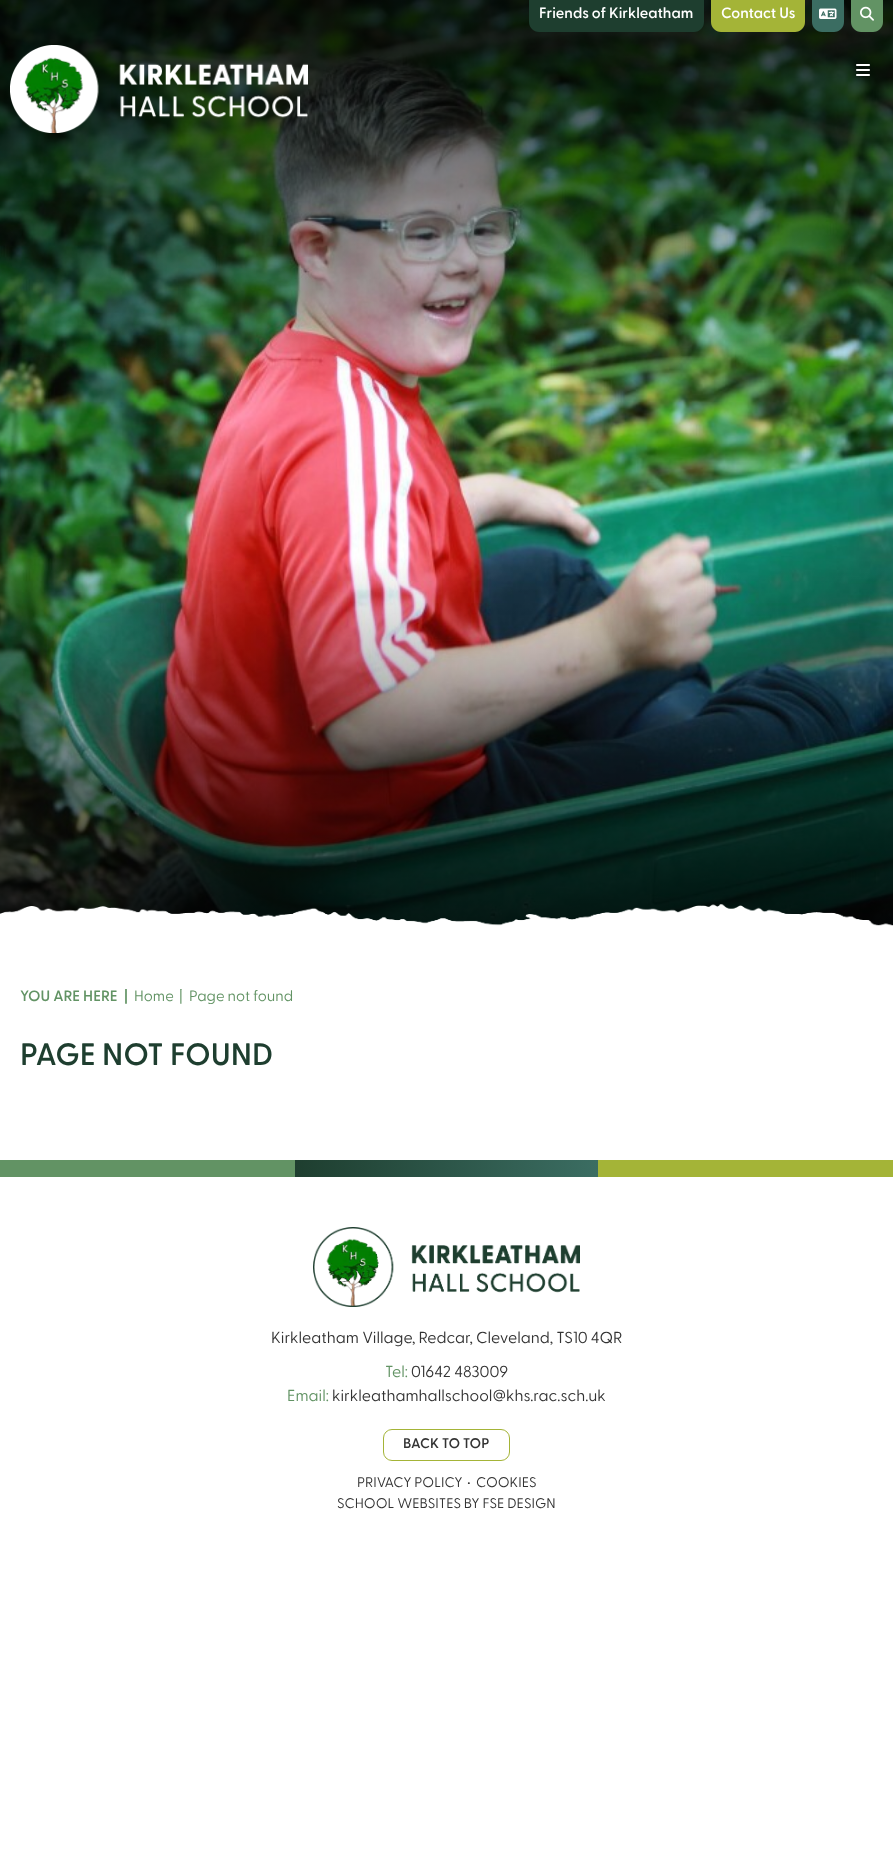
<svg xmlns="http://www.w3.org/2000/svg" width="893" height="1861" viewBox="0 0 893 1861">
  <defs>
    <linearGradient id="g1" gradientUnits="userSpaceOnUse" x1="0" y1="1169" x2="893" y2="1169"><stop offset="0.33" stop-color="rgb(98,147,100)"/><stop offset="0.33" stop-color="rgb(30,62,47)"/><stop offset="0.67" stop-color="rgb(59,109,98)"/><stop offset="0.67" stop-color="rgb(164,180,55)"/></linearGradient>
  </defs>
  <rect width="100%" height="100%" fill="rgb(255,255,255)"/>
  <image x="0" y="0" width="893" height="926" href="pic1.png"/>
  <path d="M529 0H704V22C704 27.5 699.5 32 694 32H539C533.5 32 529 27.5 529 22Z" fill="rgb(30,62,47)"/>
  <text x="539" y="18" font-family="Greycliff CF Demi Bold" font-size="15" font-weight="600" fill="rgb(255,255,255)">Friends of Kirkleatham</text>
  <path d="M711 0H805V22C805 27.5 800.5 32 795 32H721C715.5 32 711 27.5 711 22Z" fill="rgb(164,180,55)"/>
  <text x="721" y="18" font-family="Greycliff CF Demi Bold" font-size="15" font-weight="600" fill="rgb(255,255,255)">Contact Us</text>
  <path d="M812 0H844V22C844 27.5 839.5 32 834 32H822C816.5 32 812 27.5 812 22Z" fill="rgb(59,109,98)"/>
  <image x="819" y="8" width="18" height="11" href="pic2.png"/>
  <path d="M851 0H883V22C883 27.5 878.5 32 873 32H861C855.5 32 851 27.5 851 22Z" fill="rgb(98,147,100)"/>
  <image x="860" y="6" width="14" height="15" href="pic3.png"/>
  <image x="10" y="45" width="298" height="88" href="pic4.png"/>
  <image x="856" y="64" width="14" height="12" href="pic5.png"/>
  <image x="0" y="904" width="893" height="27" href="pic6.png"/>
  <g font-family="Greycliff CF Demi Bold" font-size="15" font-weight="600" fill="rgb(98,147,100)">
    <text x="20" y="1001">YOU ARE HERE</text>
    <text x="124" y="1001">|</text>
  </g>
  <g font-family="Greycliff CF" font-size="15" fill="rgb(98,147,100)">
    <text x="134" y="1001">Home</text>
    <text x="179" y="1001">|</text>
    <text x="189" y="1001">Page not found</text>
  </g>
  <text x="20" y="1065" font-family="Greycliff CF Demi Bold" font-size="31" font-weight="600" fill="rgb(30,62,47)">PAGE NOT FOUND</text>
  <rect x="0" y="1160" width="893" height="17" fill="url(#g1)"/>
  <image x="313" y="1227" width="267" height="80" href="pic7.png"/>
  <text x="271" y="1343" font-family="Greycliff CF" font-size="16" fill="rgb(51,51,51)">Kirkleatham Village, Redcar, Cleveland, TS10 4QR</text>
  <text x="385" y="1377" font-family="Greycliff CF" font-size="16" fill="rgb(98,147,100)">Tel:</text>
  <text x="411" y="1377" font-family="Greycliff CF" font-size="16" fill="rgb(51,51,51)">01642 483009</text>
  <text x="287" y="1401" font-family="Greycliff CF" font-size="16" fill="rgb(98,147,100)">Email:</text>
  <text x="332" y="1401" font-family="Greycliff CF" font-size="16" fill="rgb(51,51,51)">kirkleathamhallschool@khs.rac.sch.uk</text>
  <rect x="383.5" y="1429.5" width="126" height="31" rx="8.5" fill="none" stroke="rgb(164,180,55)"/>
  <text x="403" y="1448" font-family="Greycliff CF Demi Bold" font-size="14" font-weight="600" fill="rgb(51,51,51)">BACK TO TOP</text>
  <g font-family="Greycliff CF" font-size="14" fill="rgb(51,51,51)">
    <text x="357" y="1487">PRIVACY POLICY</text>
    <text x="467" y="1487">•</text>
    <text x="476" y="1487">COOKIES</text>
    <text x="337" y="1508">SCHOOL WEBSITES BY FSE DESIGN</text>
  </g>
</svg>
